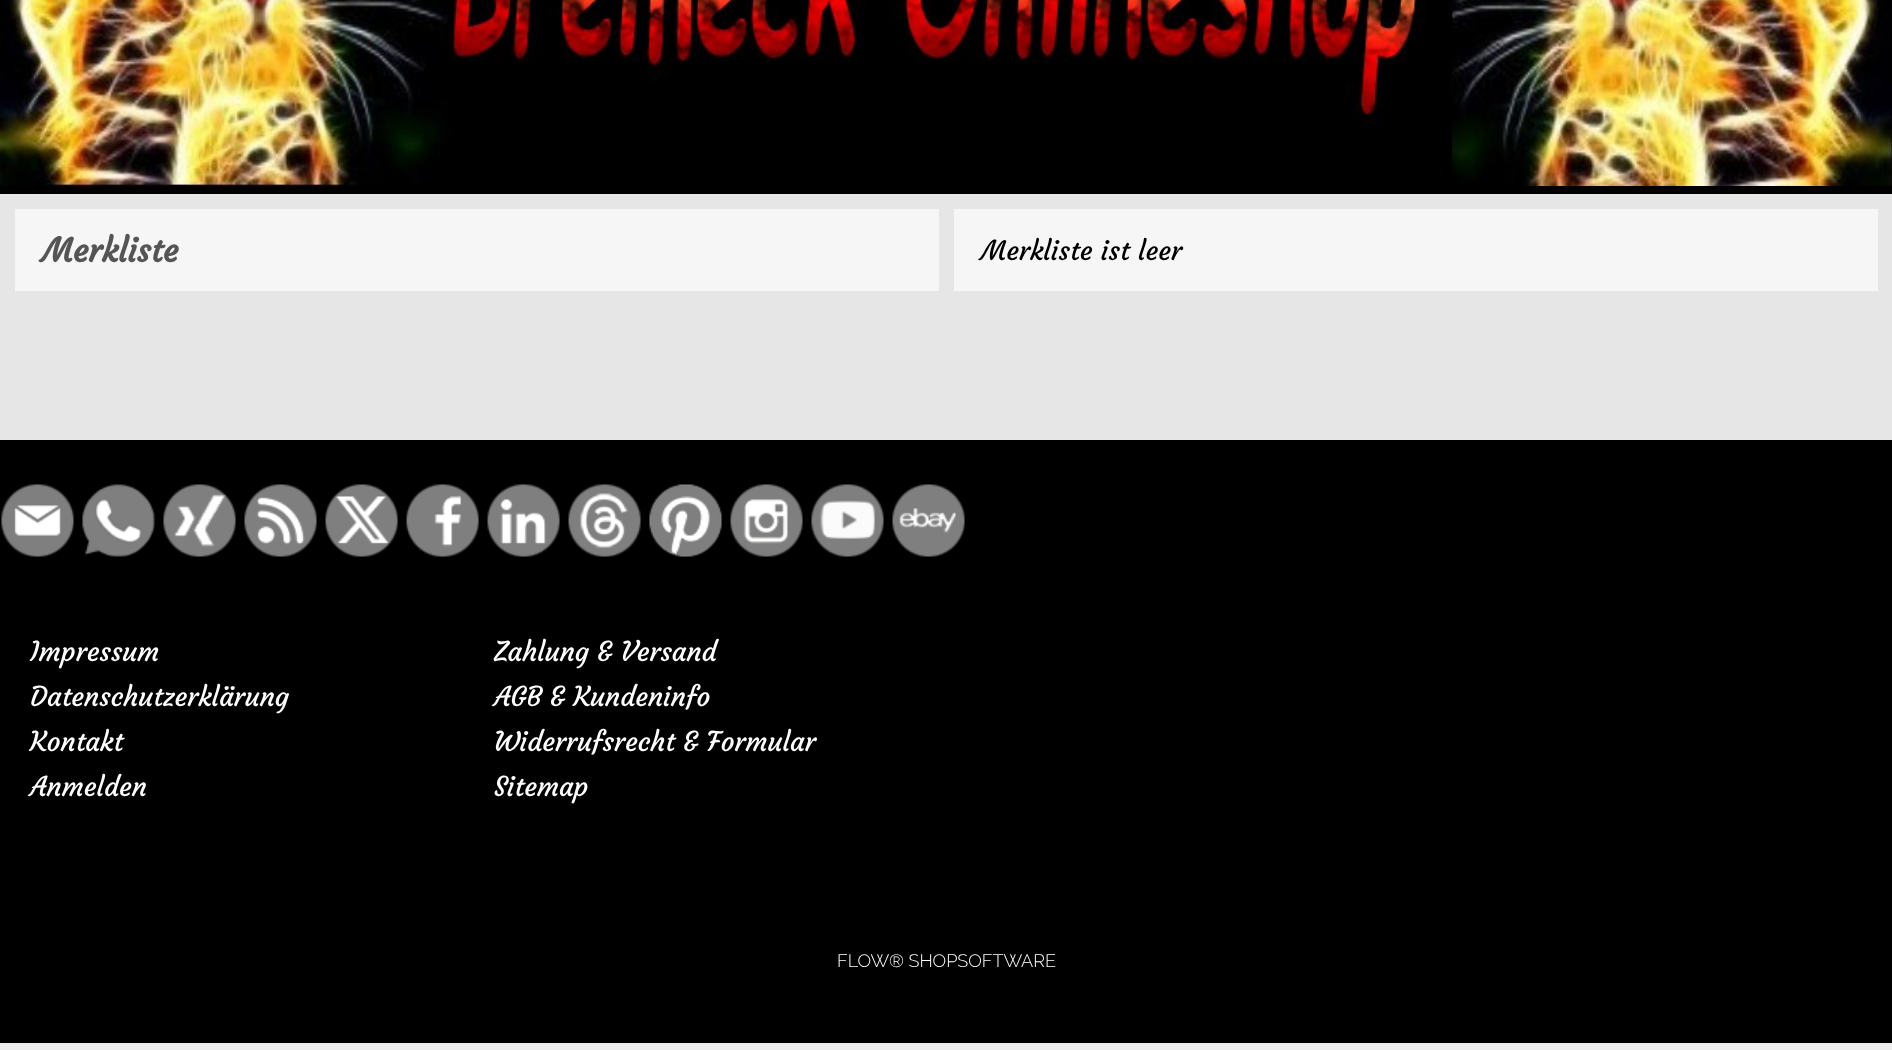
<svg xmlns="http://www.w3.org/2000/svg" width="1892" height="1050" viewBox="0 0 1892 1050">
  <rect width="100%" height="100%" fill="rgb(238,238,238)"/>
  <rect x="0" y="186" width="1892" height="857" fill="rgb(0,0,0)"/>
  <image x="0" y="0" width="1892" height="186" href="pic1.png"/>
  <rect x="0" y="194" width="1892" height="246" fill="rgb(230,230,230)"/>
  <rect x="15" y="209" width="924" height="82" fill="rgb(246,246,246)"/>
  <text x="42" y="262" font-family="Courgette" font-size="33" font-weight="bold" fill="rgb(85,85,85)">Merkliste</text>
  <rect x="954" y="209" width="924" height="82" fill="rgb(246,246,246)"/>
  <text x="981" y="260" font-family="Courgette" font-size="27" fill="rgb(0,0,0)">Merkliste ist leer</text>
  <image x="1" y="484" width="73" height="73" href="pic2.png"/>
  <image x="82" y="484" width="73" height="73" href="pic3.png"/>
  <image x="163" y="484" width="73" height="73" href="pic4.png"/>
  <image x="244" y="484" width="73" height="73" href="pic5.png"/>
  <image x="325" y="484" width="73" height="73" href="pic6.png"/>
  <image x="406" y="484" width="73" height="73" href="pic7.png"/>
  <image x="487" y="484" width="73" height="73" href="pic8.png"/>
  <image x="568" y="484" width="73" height="73" href="pic9.png"/>
  <image x="649" y="484" width="73" height="73" href="pic10.png"/>
  <image x="730" y="484" width="73" height="73" href="pic11.png"/>
  <image x="811" y="484" width="73" height="73" href="pic12.png"/>
  <image x="892" y="484" width="73" height="73" href="pic13.png"/>
  <g font-family="Courgette" font-size="27" fill="rgb(255,255,255)">
    <text>
      <tspan x="30" y="661">Impressum</tspan>
      <tspan x="30" y="706">Datenschutzerklärung</tspan>
      <tspan x="30" y="751">Kontakt</tspan>
      <tspan x="30" y="796">Anmelden</tspan>
    </text>
    <text>
      <tspan x="494" y="661">Zahlung &amp; Versand</tspan>
      <tspan x="494" y="706">AGB &amp; Kundeninfo</tspan>
      <tspan x="494" y="751">Widerrufsrecht &amp; Formular</tspan>
      <tspan x="494" y="796">Sitemap</tspan>
    </text>
  </g>
  <text x="837" y="967" font-family="Raleway" font-size="18" font-weight="300" fill="rgb(255,255,255)">FLOW® SHOPSOFTWARE</text>
</svg>
